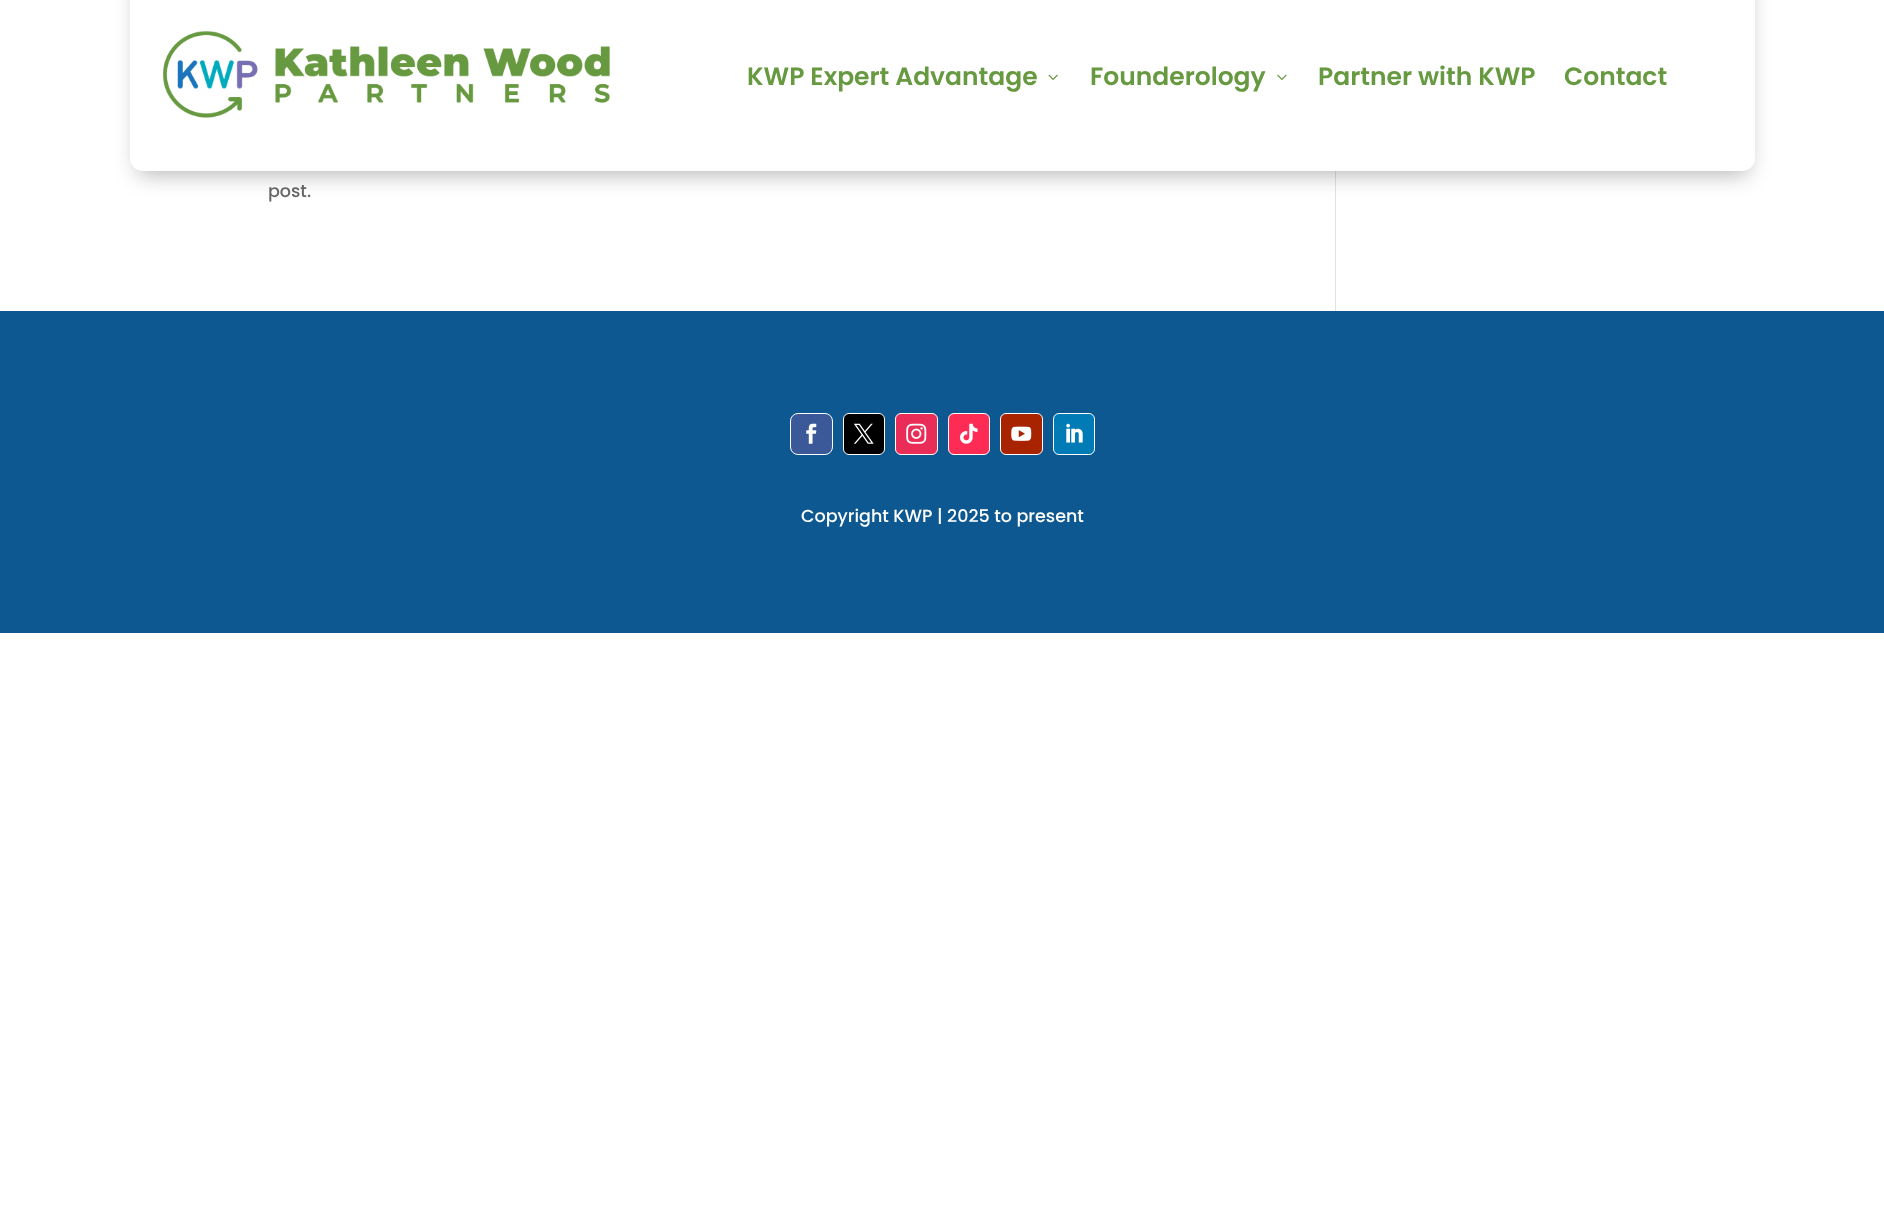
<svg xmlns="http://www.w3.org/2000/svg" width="1884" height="1213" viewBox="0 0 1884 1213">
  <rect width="100%" height="100%" fill="rgb(255,255,255)"/>
  <rect x="1335" y="171" width="1" height="140" fill="rgb(226,226,226)"/>
  <rect x="138" y="-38" width="1610" height="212" rx="5" fill="rgba(0,0,0,0.3)" filter="blur(11px)"/>
  <rect x="130" y="-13" width="1625" height="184" rx="13" fill="rgb(255,255,255)"/>
  <image x="163" y="31" width="447" height="87" href="pic1.png"/>
  <text x="747" y="85" font-family="Poppins" font-size="25" font-weight="600" fill="rgb(103,153,64)">KWP Expert Advantage</text>
  <image x="1048" y="74" width="10" height="6" href="pic2.png"/>
  <text x="1090" y="85" font-family="Poppins" font-size="25" font-weight="600" fill="rgb(103,153,64)">Founderology</text>
  <image x="1277" y="74" width="10" height="6" href="pic3.png"/>
  <g font-family="Poppins" font-size="25" font-weight="600" fill="rgb(103,153,64)">
    <text x="1318" y="85">Partner with KWP</text>
    <text x="1564" y="85">Contact</text>
  </g>
  <text x="268" y="197" font-family="Poppins" font-size="17.5" font-weight="500" fill="rgb(102,102,102)">post.</text>
  <rect x="0" y="311" width="1884" height="322" fill="rgb(13,88,145)"/>
  <rect x="790.5" y="413.5" width="42" height="41" rx="7.5" fill="rgb(59,89,152)" stroke="rgb(255,255,255)"/>
  <image x="806" y="423" width="11" height="21" href="pic4.png"/>
  <rect x="843.5" y="413.5" width="41" height="41" rx="5.5" fill="rgb(0,0,0)" stroke="rgb(255,255,255)"/>
  <image x="853" y="423" width="21" height="21" href="pic5.png"/>
  <rect x="895.5" y="413.5" width="42" height="41" rx="5.5" fill="rgb(234,44,89)" stroke="rgb(255,255,255)"/>
  <image x="906" y="423" width="21" height="21" href="pic6.png"/>
  <rect x="948.5" y="413.5" width="41" height="41" rx="5.5" fill="rgb(254,44,85)" stroke="rgb(255,255,255)"/>
  <image x="960" y="423" width="18" height="21" href="pic7.png"/>
  <rect x="1000.5" y="413.5" width="42" height="41" rx="5.5" fill="rgb(168,36,0)" stroke="rgb(255,255,255)"/>
  <image x="1011" y="426" width="21" height="15" href="pic8.png"/>
  <rect x="1053.5" y="413.5" width="41" height="41" rx="5.5" fill="rgb(0,123,182)" stroke="rgb(255,255,255)"/>
  <image x="1066" y="423" width="17" height="20" href="pic9.png"/>
  <text x="801" y="522" font-family="Poppins" font-size="17.5" font-weight="500" fill="rgb(255,255,255)">Copyright KWP | 2025 to present</text>
</svg>
